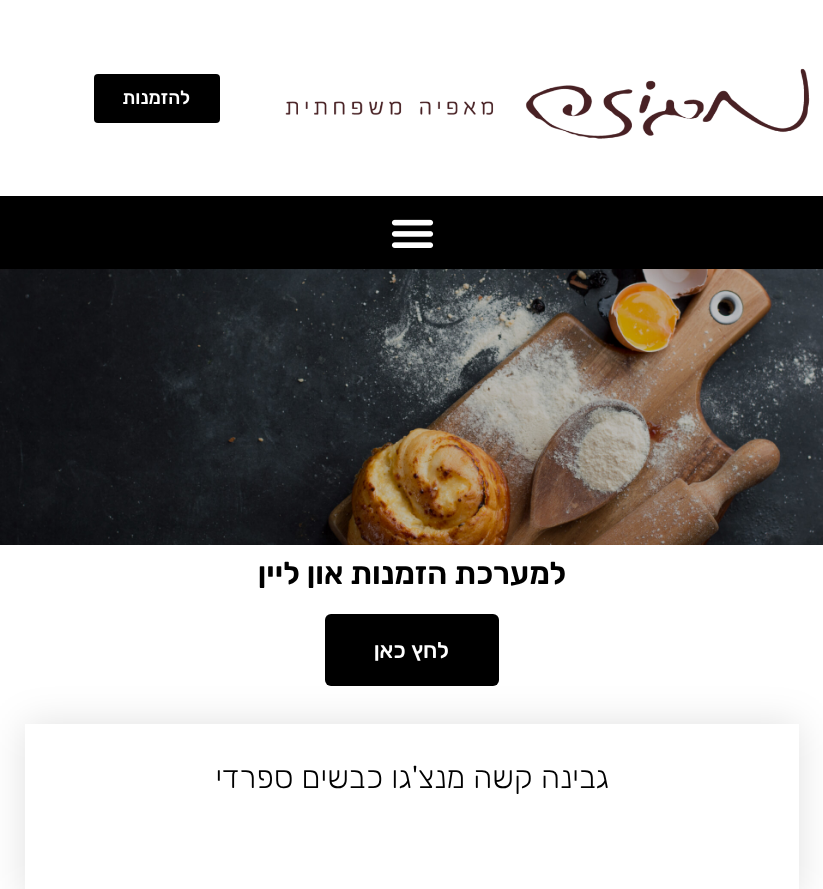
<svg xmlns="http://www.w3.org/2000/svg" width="823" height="889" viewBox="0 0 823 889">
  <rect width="100%" height="100%" fill="rgb(255,255,255)"/>
  <image x="285" y="68" width="525" height="71" href="pic1.png"/>
  <rect x="94" y="74" width="126" height="49" rx="4" fill="rgb(0,0,0)"/>
  <text x="190" y="104" font-family="Rubik" font-size="19" font-weight="500" direction="rtl" fill="rgb(255,255,255)">להזמנות</text>
  <rect x="0" y="196" width="823" height="73" fill="rgb(0,0,0)"/>
  <image x="391" y="219" width="43" height="29" href="pic2.png"/>
  <image x="0" y="269" width="823" height="276" href="pic3.png"/>
  <text x="566" y="584" font-family="Rubik" font-size="31.25" font-weight="600" direction="rtl" fill="rgb(0,0,0)">למערכת הזמנות און ליין</text>
  <rect x="325" y="614" width="174" height="72" rx="6" fill="rgb(0,0,0)"/>
  <text x="449" y="658" word-spacing="1" font-family="Rubik" font-size="22.5" font-weight="500" direction="rtl" fill="rgb(255,255,255)">לחץ כאן</text>
  <rect x="25" y="724" width="774" height="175" fill="rgba(0,0,0,0.12)" filter="blur(19px)"/>
  <rect x="25" y="724" width="774" height="165" fill="rgb(255,255,255)"/>
  <text x="609" y="788" font-family="Rubik" font-size="31.25" font-weight="300" direction="rtl" fill="rgb(0,0,0)">גבינה קשה מנצ'גו כבשים ספרדי</text>
</svg>
